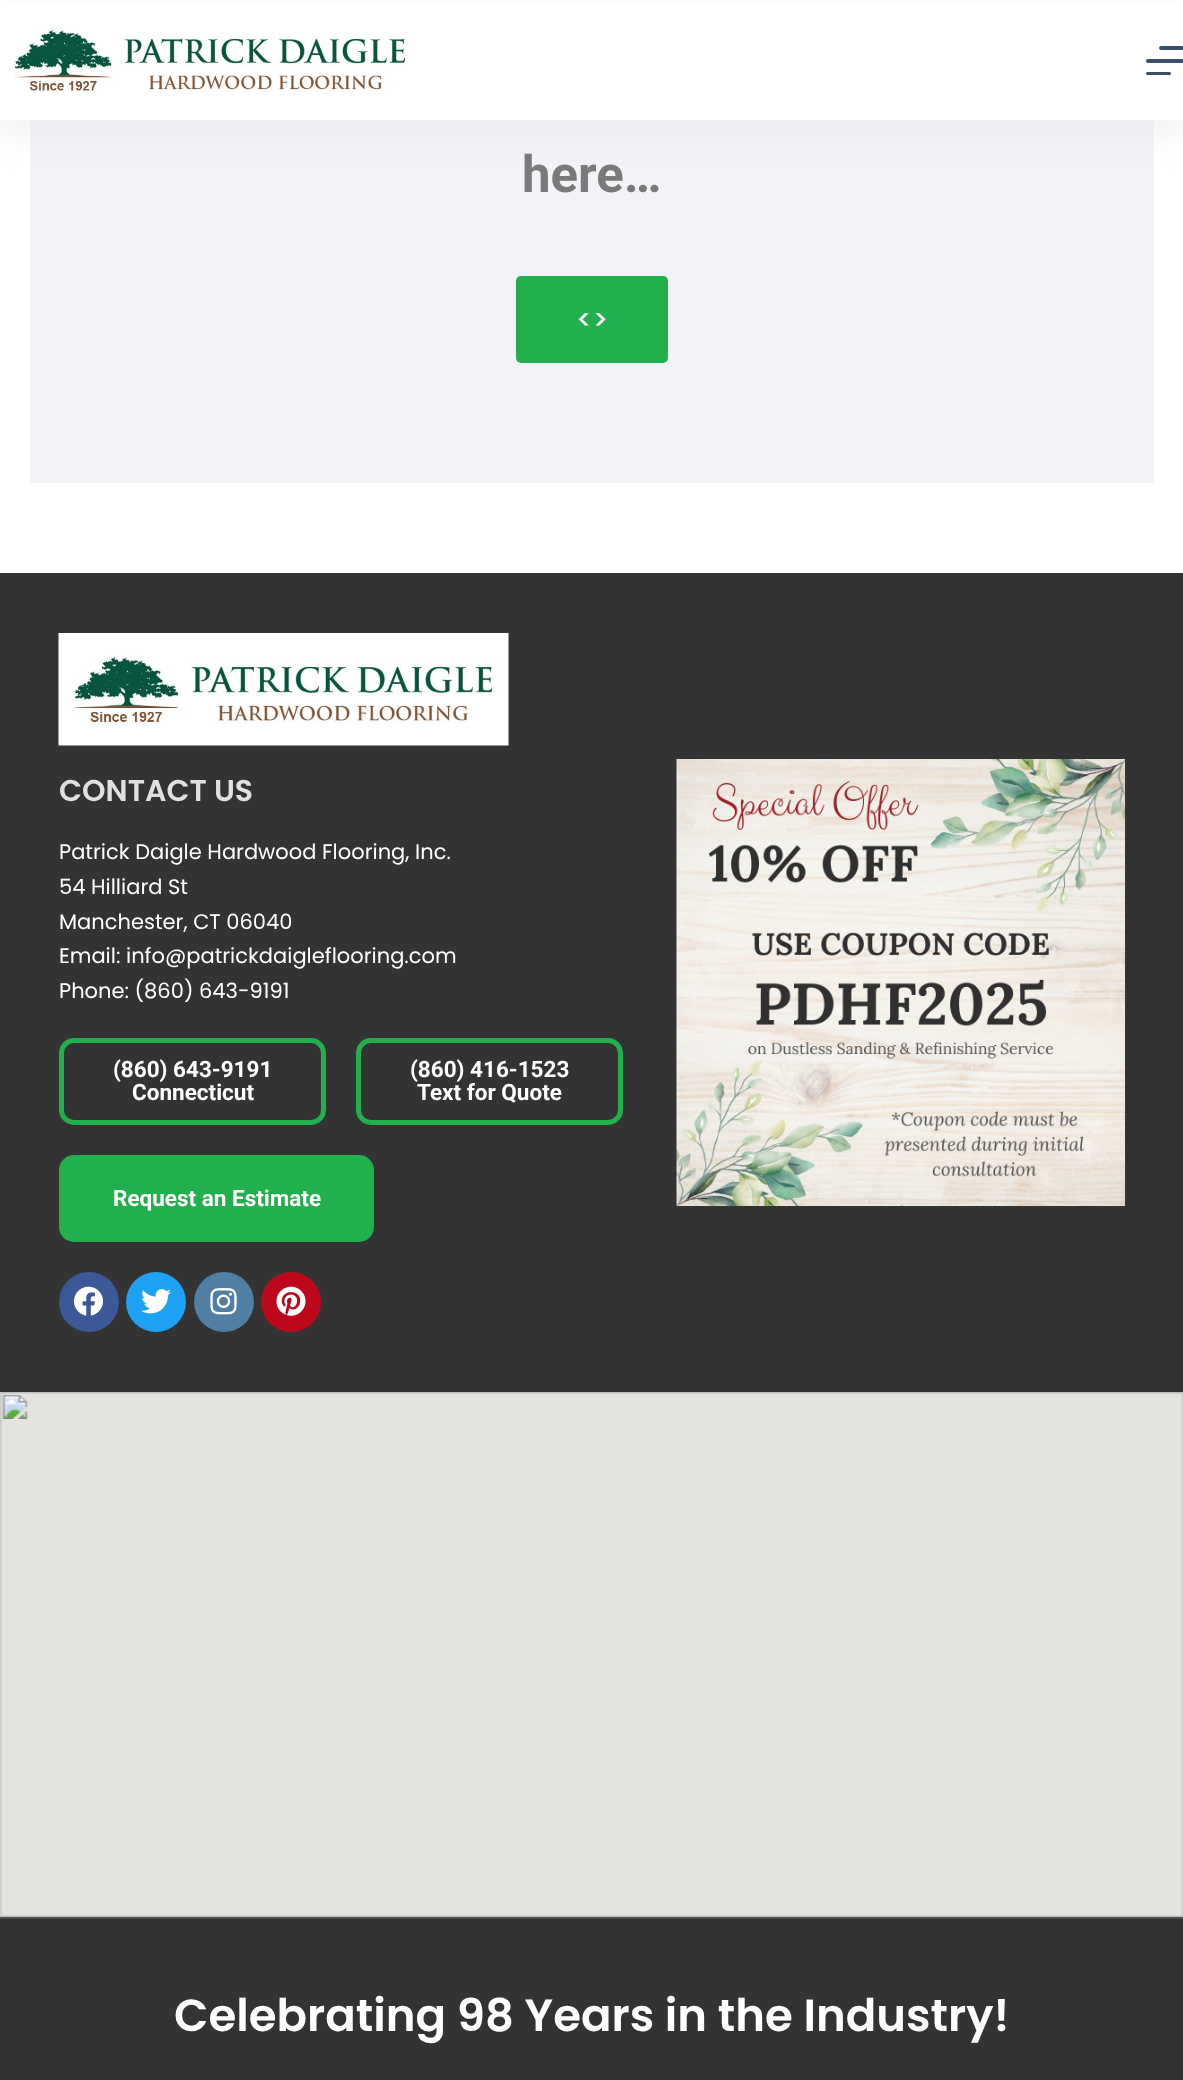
<svg xmlns="http://www.w3.org/2000/svg" width="1183" height="2080" viewBox="0 0 1183 2080">
  <rect width="100%" height="100%" fill="rgb(255,255,255)"/>
  <rect x="30" y="120" width="1124" height="363" fill="rgb(242,243,247)"/>
  <rect x="0" y="15" width="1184" height="120" fill="rgba(230,230,230,0.5)" filter="blur(15px)"/>
  <rect x="0" y="3" width="1183" height="117" fill="rgb(255,255,255)"/>
  <image x="13" y="28" width="395" height="64" href="pic1.png"/>
  <rect x="1159" y="46" width="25" height="4" rx="2" fill="rgb(58,79,102)"/>
  <rect x="1146" y="59" width="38" height="4" rx="2" fill="rgb(58,79,102)"/>
  <rect x="1146" y="72" width="25" height="3" rx="1.5" fill="rgb(58,79,102)"/>
  <text x="522" y="192" font-family="Roboto" font-size="51" font-weight="bold" fill="rgb(122,122,122)">here…</text>
  <rect x="516" y="276" width="152" height="87" rx="5" fill="rgb(33,176,76)"/>
  <text x="576" y="329" font-family="Poppins" font-size="27" font-weight="500" fill="rgb(255,255,255)">&lt;&gt;</text>
  <rect x="0" y="573" width="1183" height="1507" fill="rgb(51,51,51)"/>
  <rect x="0" y="1917" width="1183" height="2" fill="rgb(75,75,75)"/>
  <image x="58" y="633" width="451" height="113" href="pic2.png"/>
  <text x="59" y="801" font-family="Poppins" font-size="30" font-weight="600" fill="rgb(224,224,224)">CONTACT US</text>
  <g font-family="Poppins" font-size="21" fill="rgb(255,255,255)">
    <text>
      <tspan x="59" y="859">Patrick Daigle Hardwood Flooring, Inc.</tspan>
      <tspan x="59" y="894">54 Hilliard St</tspan>
      <tspan x="59" y="929">Manchester, CT 06040</tspan>
      <tspan x="59" y="963">Email: info@patrickdaigleflooring.com</tspan>
      <tspan x="59" y="998">Phone: (860) 643-9191</tspan>
    </text>
  </g>
  <rect x="61.5" y="1040.5" width="262" height="82" rx="12.5" fill="none" stroke="rgb(33,176,76)" stroke-width="5"/>
  <g font-family="Roboto" font-size="22.5" font-weight="bold" fill="rgb(255,255,255)">
    <text x="113" y="1077">(860) 643-9191</text>
    <text x="132" y="1100">Connecticut</text>
  </g>
  <rect x="358.5" y="1040.5" width="262" height="82" rx="12.5" fill="none" stroke="rgb(33,176,76)" stroke-width="5"/>
  <g font-family="Roboto" font-size="22.5" font-weight="bold" fill="rgb(255,255,255)">
    <text x="410" y="1077">(860) 416-1523</text>
    <text x="417" y="1100">Text for Quote</text>
  </g>
  <rect x="61.5" y="1157.5" width="310" height="82" rx="12.5" fill="rgb(33,176,76)" stroke="rgb(33,176,76)" stroke-width="5"/>
  <text x="113" y="1206" font-family="Roboto" font-size="22.5" font-weight="bold" fill="rgb(255,255,255)">Request an Estimate</text>
  <circle cx="89" cy="1302" r="30" fill="rgb(59,89,152)"/>
  <image x="74" y="1286" width="29" height="30" href="pic3.png"/>
  <circle cx="156" cy="1302" r="30" fill="rgb(29,161,242)"/>
  <image x="141" y="1289" width="30" height="25" href="pic4.png"/>
  <circle cx="224" cy="1302" r="30" fill="rgb(81,127,164)"/>
  <image x="210" y="1288" width="27" height="27" href="pic5.png"/>
  <circle cx="291" cy="1302" r="30" fill="rgb(189,8,28)"/>
  <image x="276" y="1286" width="30" height="30" href="pic6.png"/>
  <image x="676" y="759" width="449" height="447" href="pic7.png"/>
  <image x="0" y="1392" width="1183" height="525" href="pic8.png"/>
  <text x="174" y="2031" font-family="Poppins" font-size="45" font-weight="600" fill="rgb(255,255,255)">Celebrating 98 Years in the Industry!</text>
</svg>
